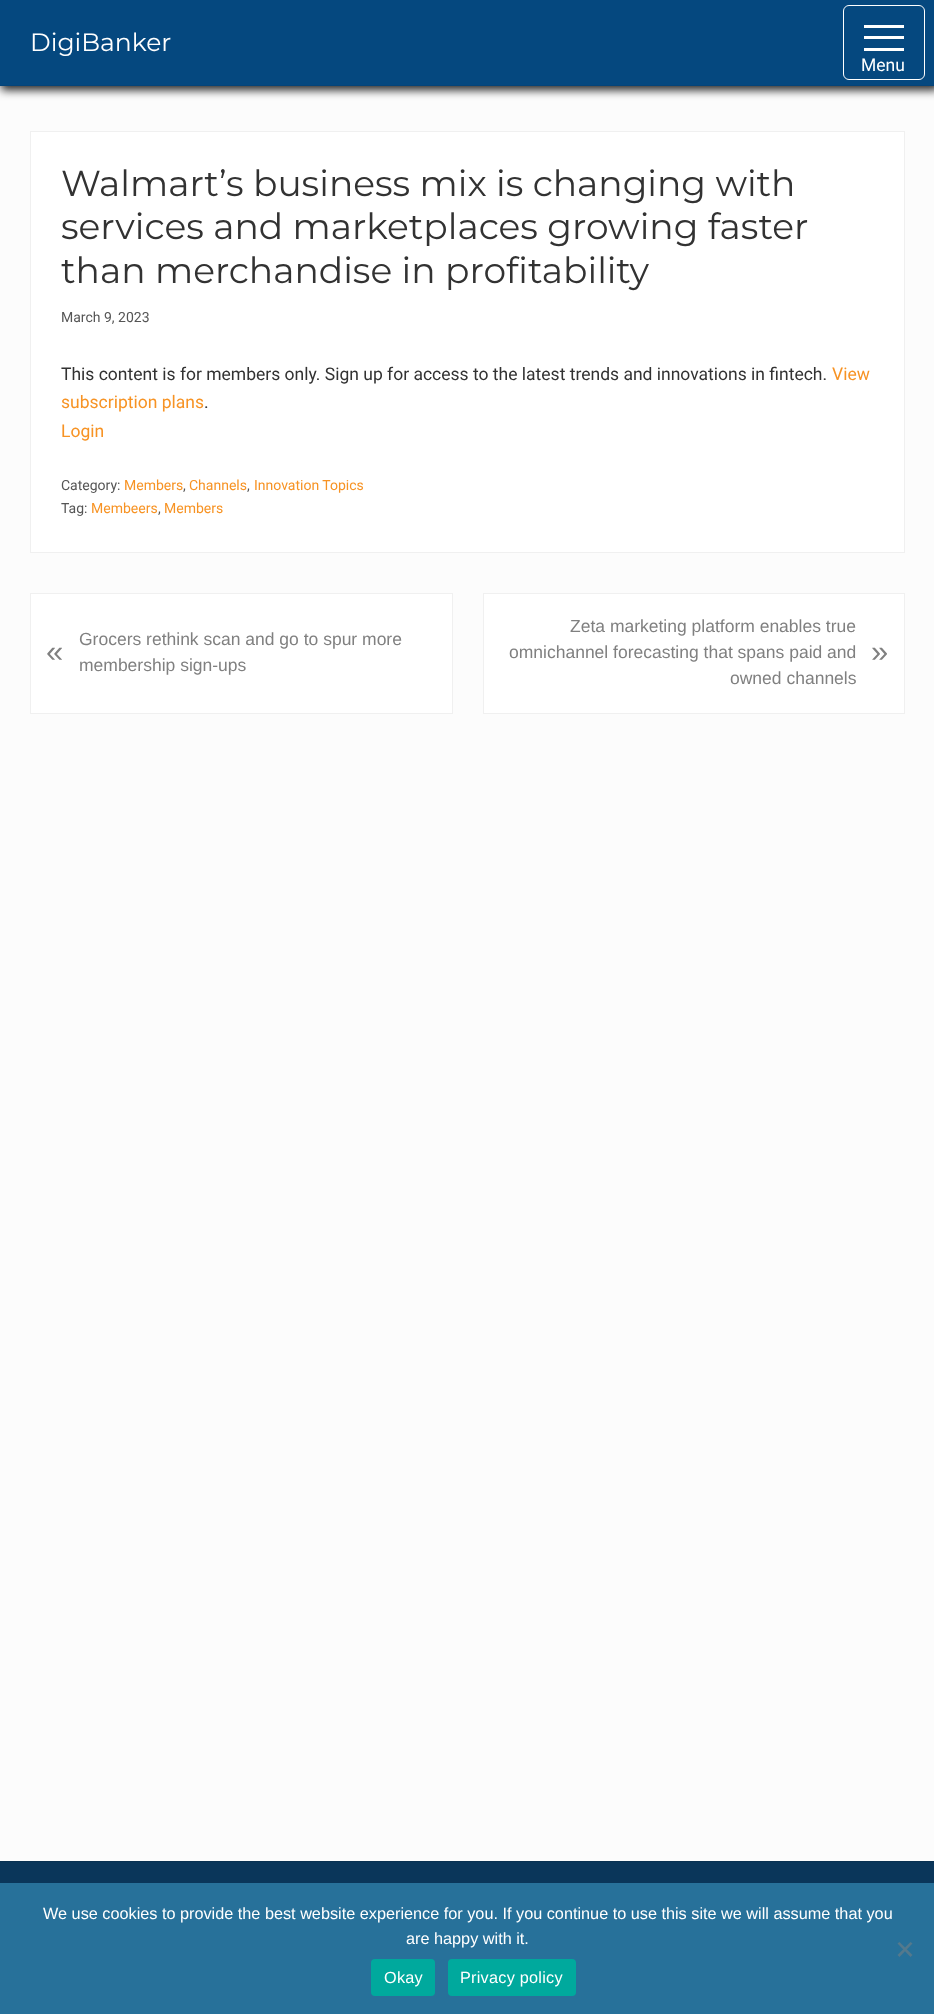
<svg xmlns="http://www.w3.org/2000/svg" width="934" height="2014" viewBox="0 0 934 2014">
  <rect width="100%" height="100%" fill="rgb(252,252,252)"/>
  <rect x="1" y="1" width="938" height="89" fill="rgb(34,34,34)" filter="blur(5px)"/>
  <rect x="0" y="0" width="934" height="85" fill="rgb(5,72,127)"/>
  <rect x="0" y="85" width="934" height="1" fill="rgb(5,68,121)"/>
  <text x="30" y="51" font-family="Montserrat" font-size="25" fill="rgb(255,255,255)">DigiBanker</text>
  <rect x="843.5" y="5.5" width="81" height="74" rx="5.5" fill="none" stroke="rgb(255,255,255)"/>
  <rect x="864" y="36" width="40" height="3" fill="rgb(255,255,255)"/>
  <rect x="864" y="25" width="40" height="3" fill="rgb(255,255,255)"/>
  <rect x="864" y="48" width="40" height="3" fill="rgb(255,255,255)"/>
  <text x="861" y="71" font-family="Roboto" font-size="17.5" fill="rgb(255,255,255)">Menu</text>
  <rect x="30.5" y="131.5" width="874" height="421" fill="rgb(255,255,255)" stroke="rgb(240,240,240)"/>
  <g font-family="Montserrat" font-size="36" fill="rgb(50,50,50)">
    <text>
      <tspan x="61" y="196">Walmart’s business mix is changing with</tspan>
      <tspan x="61" y="239">services and marketplaces growing faster</tspan>
      <tspan x="61" y="283">than merchandise in profitability</tspan>
    </text>
  </g>
  <text x="61" y="322" font-family="Roboto" font-size="14" fill="rgb(85,85,85)">March 9, 2023</text>
  <text x="61" y="380" font-family="Roboto" font-size="17.5" fill="rgb(50,50,50)">This content is for members only. Sign up for access to the latest trends and innovations in fintech.</text>
  <g font-family="Roboto" font-size="17.5" fill="rgb(247,147,36)">
    <text x="832" y="380">View</text>
    <text x="61" y="408">subscription plans</text>
  </g>
  <text x="204" y="408" font-family="Roboto" font-size="17.5" fill="rgb(50,50,50)">.</text>
  <text x="61" y="437" font-family="Roboto" font-size="17.5" fill="rgb(247,147,36)">Login</text>
  <text x="61" y="490" font-family="Roboto" font-size="14" fill="rgb(85,85,85)">Category:</text>
  <text x="124" y="490" font-family="Roboto" font-size="14" fill="rgb(247,147,36)">Members</text>
  <text x="183" y="490" font-family="Roboto" font-size="14" fill="rgb(85,85,85)">,</text>
  <text x="189" y="490" font-family="Roboto" font-size="14" fill="rgb(247,147,36)">Channels</text>
  <text x="247" y="490" font-family="Roboto" font-size="14" fill="rgb(85,85,85)">,</text>
  <text x="254" y="490" font-family="Roboto" font-size="14" fill="rgb(247,147,36)">Innovation Topics</text>
  <text x="61" y="513" font-family="Roboto" font-size="14" fill="rgb(85,85,85)">Tag:</text>
  <text x="91" y="513" font-family="Roboto" font-size="14" fill="rgb(247,147,36)">Membeers</text>
  <text x="158" y="513" font-family="Roboto" font-size="14" fill="rgb(85,85,85)">,</text>
  <text x="164" y="513" font-family="Roboto" font-size="14" fill="rgb(247,147,36)">Members</text>
  <rect x="30.5" y="593.5" width="422" height="120" fill="rgb(255,255,255)" stroke="rgb(240,240,240)"/>
  <text x="79" y="645" font-family="Liberation Sans" font-size="17.5" fill="rgb(128,128,128)">Grocers rethink scan and go to spur more</text>
  <text x="46" y="662" font-family="Liberation Sans" font-size="31" fill="rgb(128,128,128)">«</text>
  <text x="79" y="671" font-family="Liberation Sans" font-size="17.5" fill="rgb(128,128,128)">membership sign-ups</text>
  <rect x="483.5" y="593.5" width="421" height="120" fill="rgb(255,255,255)" stroke="rgb(240,240,240)"/>
  <g font-family="Liberation Sans" font-size="17.5" fill="rgb(128,128,128)">
    <text x="570" y="632">Zeta marketing platform enables true</text>
    <text x="509" y="658">omnichannel forecasting that spans paid and</text>
  </g>
  <text x="871" y="662" font-family="Liberation Sans" font-size="31" fill="rgb(128,128,128)">»</text>
  <text x="730" y="684" font-family="Liberation Sans" font-size="17.5" fill="rgb(128,128,128)">owned channels</text>
  <rect x="0" y="1862" width="934" height="21" fill="rgb(10,54,90)"/>
  <rect x="0" y="1861" width="934" height="1" fill="rgb(9,49,81)"/>
  <rect x="0" y="1883" width="934" height="131" fill="rgb(39,113,154)"/>
  <g font-family="Liberation Sans" font-size="16.25" fill="rgb(255,255,255)">
    <text x="43" y="1919">We use cookies to provide the best website experience for you. If you continue to use this site we will assume that you</text>
    <text x="406" y="1944">are happy with it.</text>
  </g>
  <path d="M910.5 1942L912.5 1943.5L899.5 1957L897.5 1955Z" fill="rgb(84,121,141)"/>
  <path d="M897.5 1943.5L899.5 1942L912.5 1955L910.5 1957Z" fill="rgb(84,121,141)"/>
  <rect x="371" y="1959" width="64" height="37" rx="4" fill="rgb(0,169,157)"/>
  <text x="384" y="1983" font-family="Liberation Sans" font-size="16.25" letter-spacing="0.25" fill="rgb(255,255,255)">Okay</text>
  <rect x="448" y="1959" width="128" height="37" rx="4" fill="rgb(0,169,157)"/>
  <text x="460" y="1983" font-family="Liberation Sans" font-size="16.25" letter-spacing="0.25" fill="rgb(255,255,255)">Privacy policy</text>
</svg>
